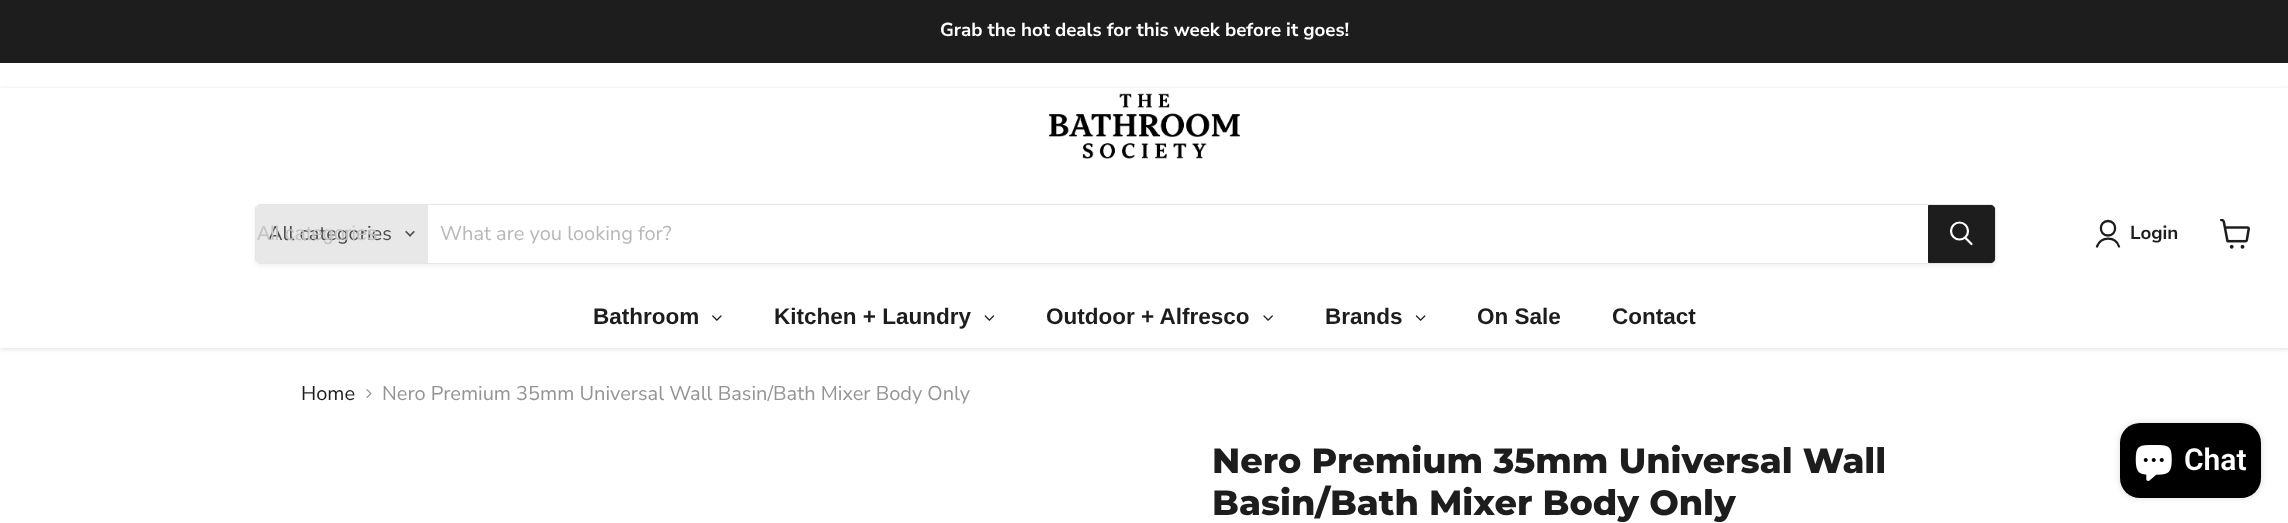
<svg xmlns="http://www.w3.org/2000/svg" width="2288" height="523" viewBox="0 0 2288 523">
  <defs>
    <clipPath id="clip1"><path d="M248 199H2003V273H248ZM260 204H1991C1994 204 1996 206 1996 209V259C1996 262 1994 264 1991 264H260C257 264 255 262 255 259V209C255 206 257 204 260 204Z" clip-rule="evenodd"/></clipPath>
  </defs>
  <rect width="100%" height="100%" fill="rgb(255,255,255)"/>
  <rect x="0" y="0" width="2288" height="63" fill="rgb(29,29,29)"/>
  <text x="940" y="36" font-family="Nunito Sans" font-size="18.75" font-weight="bold" fill="rgb(255,255,255)">Grab the hot deals for this week before it goes!</text>
  <rect x="0" y="89" width="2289" height="260" fill="rgba(128,128,128,0.25)" filter="blur(2.5px)"/>
  <rect x="0" y="88" width="2288" height="260" fill="rgb(255,255,255)"/>
  <image x="1049" y="93" width="192" height="66" href="pic1.png"/>
  <g clip-path="url(#clip1)">
    <rect x="255" y="206" width="1741" height="60" rx="5" fill="rgba(128,128,128,0.11)" filter="blur(2px)"/>
  </g>
  <rect x="255.5" y="204.5" width="1740" height="59" rx="4.5" fill="none" stroke="rgba(128,128,128,0.2)"/>
  <path d="M260 205H428V263H260C258 263 256 261 256 259V209C256 207 258 205 260 205Z" fill="rgb(232,232,232)"/>
  <text x="268" y="240" font-family="Nunito Sans" font-size="20" fill="rgb(77,77,77)">All categories</text>
  <text x="257" y="240" font-family="Liberation Sans" font-size="20" fill="rgb(195,195,195)">All categories</text>
  <image x="405" y="230" width="10" height="7" href="pic2.png"/>
  <text x="440" y="240" font-family="Nunito Sans" font-size="20" fill="rgb(184,184,184)">What are you looking for?</text>
  <path d="M1928.5 205.5H1991C1993 205.5 1994.5 207 1994.5 209V259C1994.5 261 1993 262.5 1991 262.5H1928.5Z" fill="rgb(29,29,29)" stroke="rgb(29,29,29)"/>
  <path d="M1971.5 244L1965.5 238" fill="none" stroke="rgb(255,255,255)" stroke-width="2.2" stroke-linecap="round"/>
  <circle cx="1959.5" cy="231" r="8.5" fill="none" stroke="rgb(255,255,255)" stroke-width="2.2"/>
  <path d="M2108 235.5C2117.5 235.5 2117.5 221 2108 221C2098.5 221 2098.5 235.5 2108 235.5ZM2119 246.5C2115.5 236 2101 236 2097 246.5" fill="none" stroke="rgb(29,29,29)" stroke-width="2.3" stroke-linecap="round" stroke-linejoin="round"/>
  <text x="2130" y="239" font-family="Nunito Sans" font-size="18.75" font-weight="bold" fill="rgb(29,29,29)">Login</text>
  <image x="2220" y="219" width="30" height="30" href="pic3.png"/>
  <text x="593" y="324" font-family="Liberation Sans" font-size="22.5" font-weight="bold" fill="rgb(29,29,29)">Bathroom</text>
  <image x="712" y="315" width="10" height="6" href="pic4.png"/>
  <text x="774" y="324" font-family="Liberation Sans" font-size="22.5" font-weight="bold" fill="rgb(29,29,29)">Kitchen + Laundry</text>
  <image x="984" y="315" width="11" height="6" href="pic5.png"/>
  <text x="1046" y="324" font-family="Liberation Sans" font-size="22.5" font-weight="bold" fill="rgb(29,29,29)">Outdoor + Alfresco</text>
  <image x="1263" y="315" width="10" height="6" href="pic6.png"/>
  <text x="1325" y="324" font-family="Liberation Sans" font-size="22.5" font-weight="bold" fill="rgb(29,29,29)">Brands</text>
  <image x="1415" y="315" width="11" height="6" href="pic7.png"/>
  <g font-family="Liberation Sans" font-size="22.5" font-weight="bold" fill="rgb(29,29,29)">
    <text x="1477" y="324">On Sale</text>
    <text x="1612" y="324">Contact</text>
  </g>
  <text x="301" y="400" font-family="Nunito Sans" font-size="20" fill="rgb(29,29,29)">Home</text>
  <image x="366" y="389" width="6" height="9" href="pic8.png"/>
  <text x="382" y="400" font-family="Nunito Sans" font-size="20" fill="rgb(148,148,148)">Nero Premium 35mm Universal Wall Basin/Bath Mixer Body Only</text>
  <g font-family="Montserrat" font-size="35" font-weight="800" fill="rgb(29,29,29)">
    <text>
      <tspan x="1212" y="473">Nero Premium 35mm Universal Wall</tspan>
      <tspan x="1212" y="515">Basin/Bath Mixer Body Only</tspan>
    </text>
  </g>
  <rect x="2120" y="423" width="141" height="75" rx="20" fill="rgba(0,0,0,0.15)" filter="blur(3px)"/>
  <rect x="2120" y="423" width="141" height="75" rx="20" fill="rgb(0,0,0)"/>
  <image x="2135" y="445" width="37" height="36" href="pic9.png"/>
  <text x="2184" y="470" font-family="Roboto" font-size="30" font-weight="600" fill="rgb(255,255,255)">Chat</text>
</svg>
